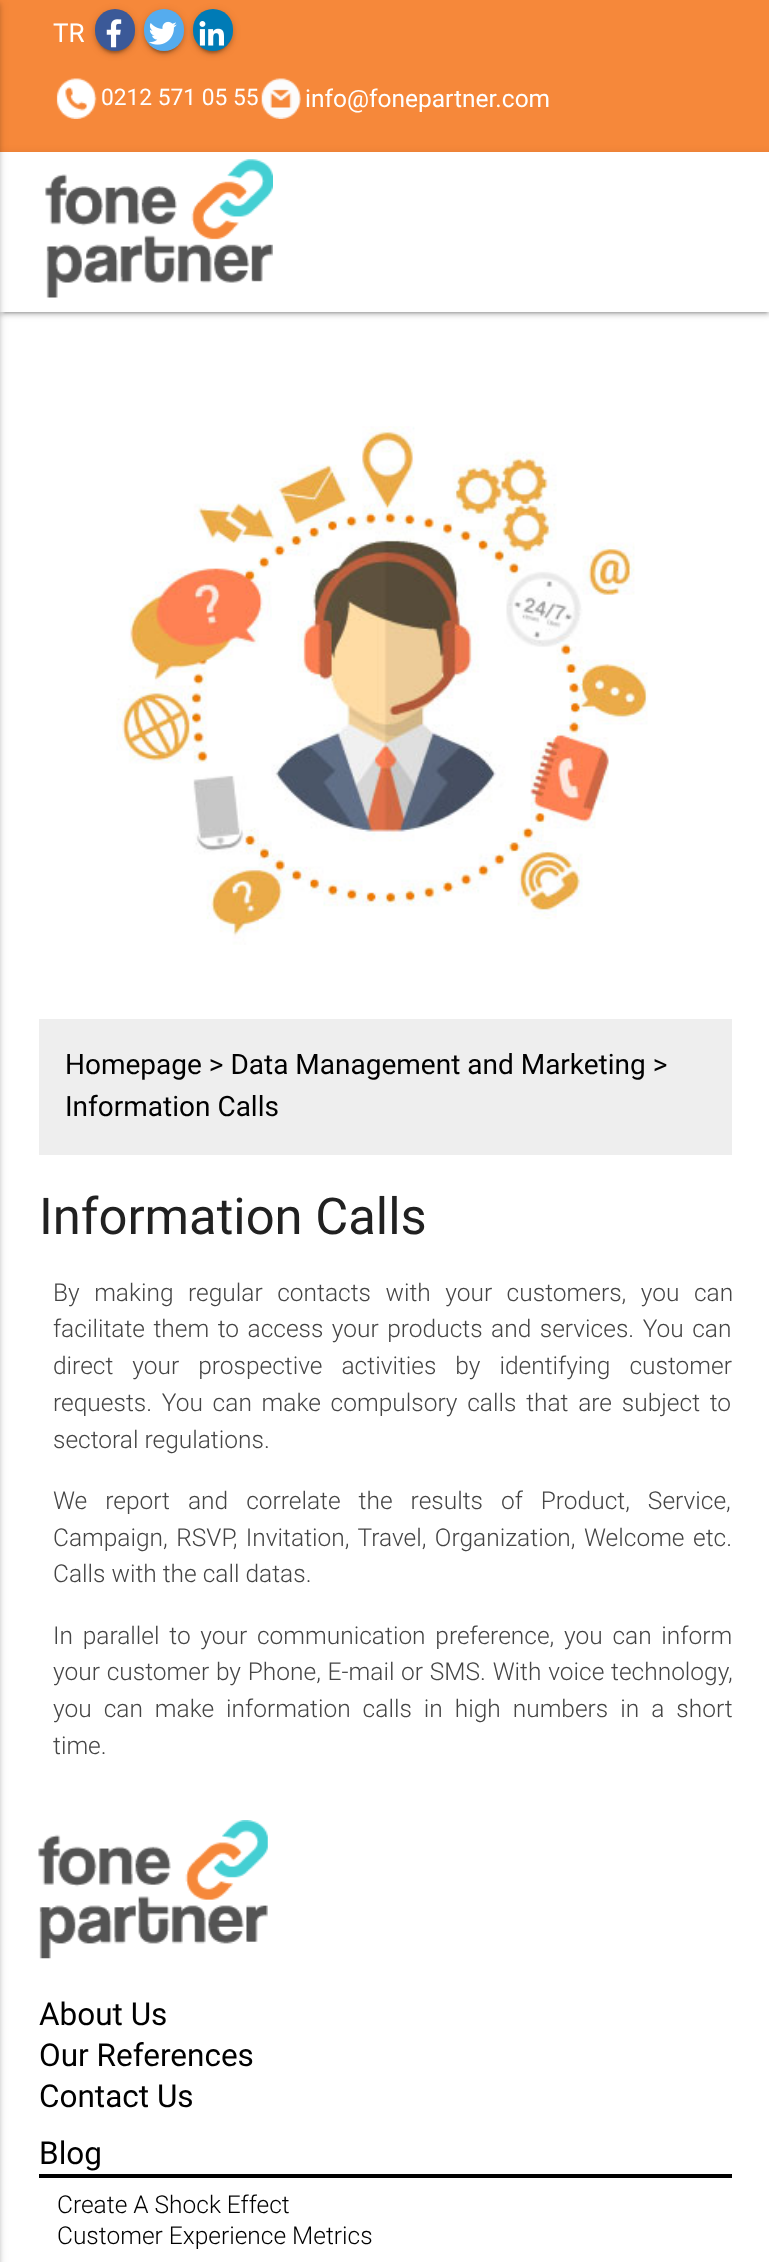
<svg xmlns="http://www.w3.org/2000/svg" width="769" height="2262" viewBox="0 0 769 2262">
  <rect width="100%" height="100%" fill="rgb(255,255,255)"/>
  <rect x="4" y="161" width="763" height="152" fill="rgba(0,0,0,0.2)" filter="blur(1px)"/>
  <rect x="0" y="0" width="769" height="152" fill="rgb(246,136,58)"/>
  <rect x="0" y="154" width="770" height="159" fill="rgba(0,0,0,0.12)" filter="blur(4.5px)"/>
  <rect x="0" y="156" width="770" height="159" fill="rgba(0,0,0,0.14)" filter="blur(2px)"/>
  <rect x="0" y="152" width="769" height="160" fill="rgb(255,255,255)"/>
  <rect x="-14" y="2" width="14" height="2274" fill="rgba(0,0,0,0.12)" filter="blur(4.5px)"/>
  <rect x="-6" y="4" width="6" height="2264" fill="rgba(0,0,0,0.14)" filter="blur(2px)"/>
  <image x="45" y="159" width="228" height="139" href="pic1.png"/>
  <text x="53" y="42" font-family="Roboto" font-size="26" fill="rgb(255,255,255)">TR</text>
  <rect x="98" y="18" width="33" height="35" rx="16.5" fill="rgba(0,0,0,0.2)" filter="blur(1px)"/>
  <rect x="95" y="11" width="40" height="42" rx="20" fill="rgba(0,0,0,0.12)" filter="blur(4.5px)"/>
  <rect x="95" y="12" width="40" height="42" rx="20" fill="rgba(0,0,0,0.14)" filter="blur(2px)"/>
  <rect x="95" y="9" width="40" height="42" rx="20" fill="rgb(59,89,152)"/>
  <image x="106" y="19" width="16" height="29" href="pic2.png"/>
  <rect x="147" y="18" width="33" height="35" rx="16.5" fill="rgba(0,0,0,0.2)" filter="blur(1px)"/>
  <rect x="144" y="11" width="40" height="42" rx="20" fill="rgba(0,0,0,0.12)" filter="blur(4.5px)"/>
  <rect x="144" y="12" width="40" height="42" rx="20" fill="rgba(0,0,0,0.14)" filter="blur(2px)"/>
  <rect x="144" y="9" width="40" height="42" rx="20" fill="rgb(85,172,238)"/>
  <image x="149" y="21" width="28" height="24" href="pic3.png"/>
  <rect x="196" y="18" width="33" height="35" rx="16.5" fill="rgba(0,0,0,0.2)" filter="blur(1px)"/>
  <rect x="193" y="11" width="40" height="42" rx="20" fill="rgba(0,0,0,0.12)" filter="blur(4.5px)"/>
  <rect x="193" y="12" width="40" height="42" rx="20" fill="rgba(0,0,0,0.14)" filter="blur(2px)"/>
  <rect x="193" y="9" width="40" height="42" rx="20" fill="rgb(0,123,182)"/>
  <image x="199" y="21" width="25" height="25" href="pic4.png"/>
  <image x="56" y="78" width="41" height="41" href="pic5.png"/>
  <text x="101" y="105" font-family="Roboto" font-size="22.75" fill="rgb(255,255,255)">0212 571 05 55</text>
  <image x="261" y="78" width="40" height="41" href="pic6.png"/>
  <text x="305" y="107" font-family="Roboto" font-size="24.5" fill="rgb(255,255,255)">info@fonepartner.com</text>
  <image x="116" y="426" width="532" height="519" href="pic7.png"/>
  <rect x="39" y="1019" width="693" height="136" fill="rgb(238,238,238)"/>
  <g font-family="Roboto" font-size="28" fill="rgb(0,0,0)">
    <text>
      <tspan x="65" y="1074">Homepage &gt; Data Management and Marketing &gt;</tspan>
      <tspan x="65" y="1116">Information Calls</tspan>
    </text>
  </g>
  <text x="39" y="1234" font-family="Roboto" font-size="50.75" fill="rgb(33,33,33)">Information Calls</text>
  <g font-family="Roboto" font-size="24.5" font-weight="300" fill="rgb(69,69,69)">
    <text>
      <tspan x="53" y="1301" word-spacing="8.5">By making regular contacts with your customers, you can</tspan>
      <tspan x="53" y="1337" word-spacing="2.5">facilitate them to access your products and services. You can</tspan>
      <tspan x="53" y="1374" word-spacing="13">direct your prospective activities by identifying customer</tspan>
      <tspan x="53" y="1411" word-spacing="3.75">requests. You can make compulsory calls that are subject to</tspan>
      <tspan x="53" y="1448">sectoral regulations.</tspan>
    </text>
    <text>
      <tspan x="53" y="1509" word-spacing="12">We report and correlate the results of Product, Service,</tspan>
      <tspan x="53" y="1546" word-spacing="2.5">Campaign, RSVP, Invitation, Travel, Organization, Welcome etc.</tspan>
      <tspan x="53" y="1582">Calls with the call datas.</tspan>
    </text>
    <text>
      <tspan x="53" y="1644" word-spacing="3.75">In parallel to your communication preference, you can inform</tspan>
      <tspan x="53" y="1680" word-spacing="0.75">your customer by Phone, E-mail or SMS. With voice technology,</tspan>
      <tspan x="53" y="1717" word-spacing="6">you can make information calls in high numbers in a short</tspan>
      <tspan x="53" y="1754">time.</tspan>
    </text>
  </g>
  <image x="38" y="1820" width="230" height="139" href="pic8.png"/>
  <g font-family="Roboto" font-size="31.5" fill="rgb(0,0,0)">
    <text>
      <tspan x="39" y="2025">About Us</tspan>
      <tspan x="39" y="2066">Our References</tspan>
      <tspan x="39" y="2107">Contact Us</tspan>
    </text>
  </g>
  <rect x="39" y="2174" width="693" height="4" fill="rgb(0,0,0)"/>
  <text x="39" y="2164" font-family="Roboto" font-size="31.5" fill="rgb(0,0,0)">Blog</text>
  <g font-family="Roboto" font-size="24.5" font-weight="300" fill="rgb(0,0,0)">
    <text>
      <tspan x="57" y="2213">Create A Shock Effect</tspan>
      <tspan x="57" y="2244">Customer Experience Metrics</tspan>
    </text>
  </g>
</svg>
